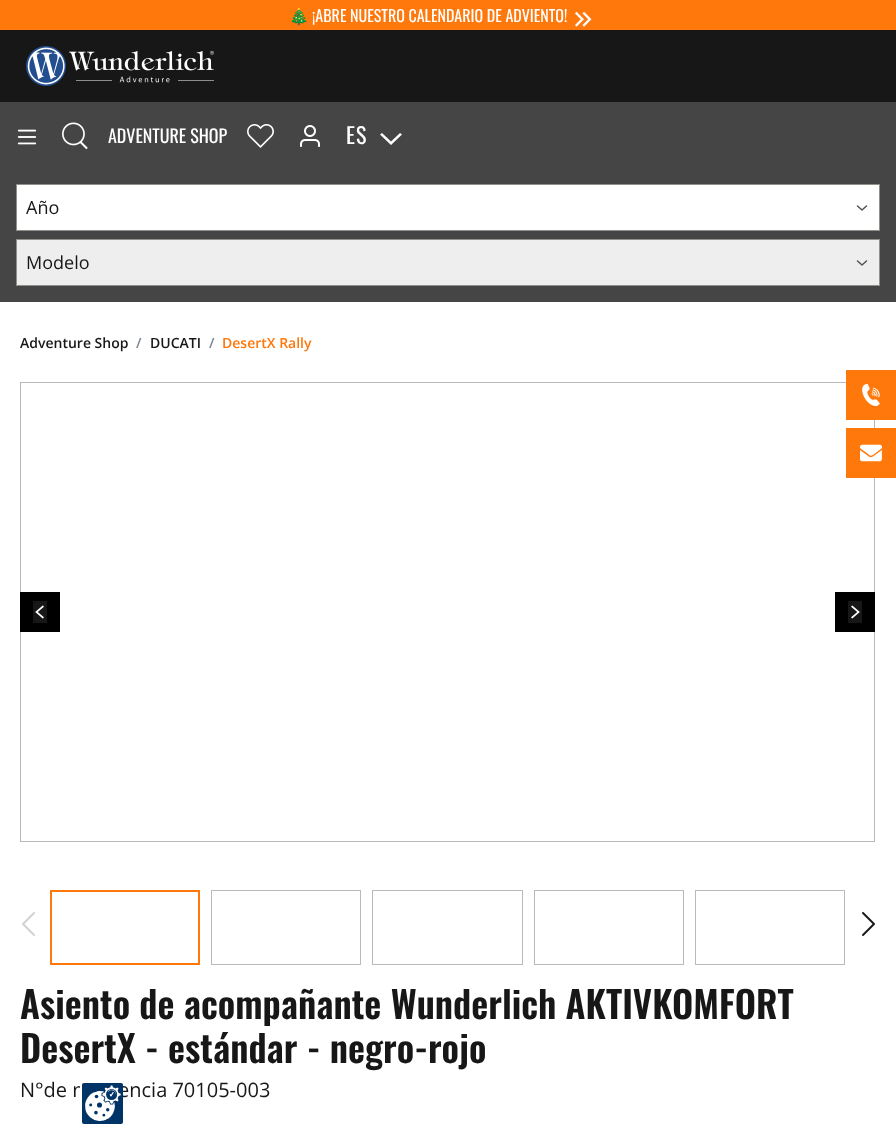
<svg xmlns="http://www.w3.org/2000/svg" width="896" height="1147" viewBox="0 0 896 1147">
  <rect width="100%" height="100%" fill="rgb(255,255,255)"/>
  <rect x="0" y="0" width="896" height="30" fill="rgb(255,120,12)"/>
  <text x="289" y="22" font-family="Noto Color Emoji" font-size="16" fill="rgb(255,255,255)">🎄</text>
  <text x="312" y="22" font-family="Oswald" font-size="16" fill="rgb(255,255,255)">¡ABRE NUESTRO CALENDARIO DE ADVIENTO!</text>
  <image x="575" y="11" width="17" height="16" href="pic1.png"/>
  <rect x="0" y="30" width="896" height="72" fill="rgb(23,23,23)"/>
  <image x="26" y="46" width="188" height="40" href="pic2.png"/>
  <rect x="0" y="102" width="896" height="200" fill="rgb(69,69,69)"/>
  <image x="17" y="129" width="20" height="16" href="pic3.png"/>
  <image x="62" y="122" width="26" height="28" href="pic4.png"/>
  <text x="108" y="143" font-family="Oswald" font-size="18" fill="rgb(255,255,255)">ADVENTURE SHOP</text>
  <image x="247" y="124" width="27" height="24" href="pic5.png"/>
  <image x="300" y="125" width="20" height="22" href="pic6.png"/>
  <text x="346" y="144" font-family="Oswald" font-size="22" letter-spacing="1" fill="rgb(255,255,255)">ES</text>
  <path d="M400 133L391 141.5L382 133L380 134.5L391 145L402 134.5Z" fill="rgb(255,255,255)"/>
  <rect x="17" y="185" width="862" height="45" fill="rgb(255,255,255)"/>
  <path d="M857.5 206L862 210L866.5 206" fill="none" stroke="rgb(74,84,91)" stroke-width="1.5" stroke-linecap="round" stroke-linejoin="round"/>
  <rect x="16.5" y="184.5" width="863" height="46" fill="none" stroke="rgb(142,144,137)"/>
  <text x="26" y="214" font-family="Open Sans" font-size="18" fill="rgb(23,23,23)">Año</text>
  <rect x="17" y="240" width="862" height="45" fill="rgb(238,238,238)"/>
  <path d="M857.5 261L862 265L866.5 261" fill="none" stroke="rgb(74,84,91)" stroke-width="1.5" stroke-linecap="round" stroke-linejoin="round"/>
  <rect x="16.5" y="239.5" width="863" height="46" fill="none" stroke="rgb(142,144,137)"/>
  <text x="26" y="269" font-family="Open Sans" font-size="18" fill="rgb(23,23,23)">Modelo</text>
  <text x="20" y="348" font-family="Open Sans" font-size="14" font-weight="600" fill="rgb(23,23,23)">Adventure Shop</text>
  <text x="136" y="348" font-family="Open Sans" font-size="14" font-weight="600" fill="rgb(121,132,144)">/</text>
  <text x="150" y="348" font-family="Open Sans" font-size="14" font-weight="600" fill="rgb(23,23,23)">DUCATI</text>
  <text x="209" y="348" font-family="Open Sans" font-size="14" font-weight="600" fill="rgb(121,132,144)">/</text>
  <text x="222" y="348" font-family="Open Sans" font-size="14" font-weight="600" fill="rgb(255,120,12)">DesertX Rally</text>
  <rect x="20.5" y="382.5" width="854" height="459" fill="none" stroke="rgb(185,185,185)"/>
  <rect x="20" y="592" width="40" height="40" fill="rgb(0,0,0)"/>
  <image x="33" y="601" width="14" height="22" href="pic7.png"/>
  <rect x="835" y="592" width="40" height="40" fill="rgb(0,0,0)"/>
  <image x="848" y="601" width="14" height="22" href="pic8.png"/>
  <rect x="51" y="891" width="148" height="73" fill="none" stroke="rgb(255,120,12)" stroke-width="2"/>
  <rect x="211.5" y="890.5" width="149" height="74" fill="none" stroke="rgb(185,185,185)"/>
  <rect x="372.5" y="890.5" width="150" height="74" fill="none" stroke="rgb(185,185,185)"/>
  <rect x="534.5" y="890.5" width="149" height="74" fill="none" stroke="rgb(185,185,185)"/>
  <rect x="695.5" y="890.5" width="149" height="74" fill="none" stroke="rgb(185,185,185)"/>
  <image x="22" y="912" width="13" height="24" href="pic9.png"/>
  <image x="862" y="912" width="13" height="24" href="pic10.png"/>
  <g font-family="Oswald" font-size="37" font-weight="600" fill="rgb(23,23,23)">
    <text>
      <tspan x="20" y="1019">Asiento de acompañante Wunderlich AKTIVKOMFORT</tspan>
      <tspan x="20" y="1063">DesertX - estándar - negro-rojo</tspan>
    </text>
  </g>
  <g font-family="Open Sans" font-size="20" fill="rgb(23,23,23)">
    <text x="20" y="1097">N°de r</text>
    <text x="118" y="1097">encia 70105-003</text>
  </g>
  <rect x="846" y="370" width="50" height="50" fill="rgb(255,120,12)"/>
  <image x="862" y="384" width="18" height="22" href="pic11.png"/>
  <rect x="846" y="428" width="50" height="50" fill="rgb(255,120,12)"/>
  <image x="860" y="444" width="22" height="18" href="pic12.png"/>
  <image x="82" y="1083" width="41" height="41" href="pic13.png"/>
</svg>
